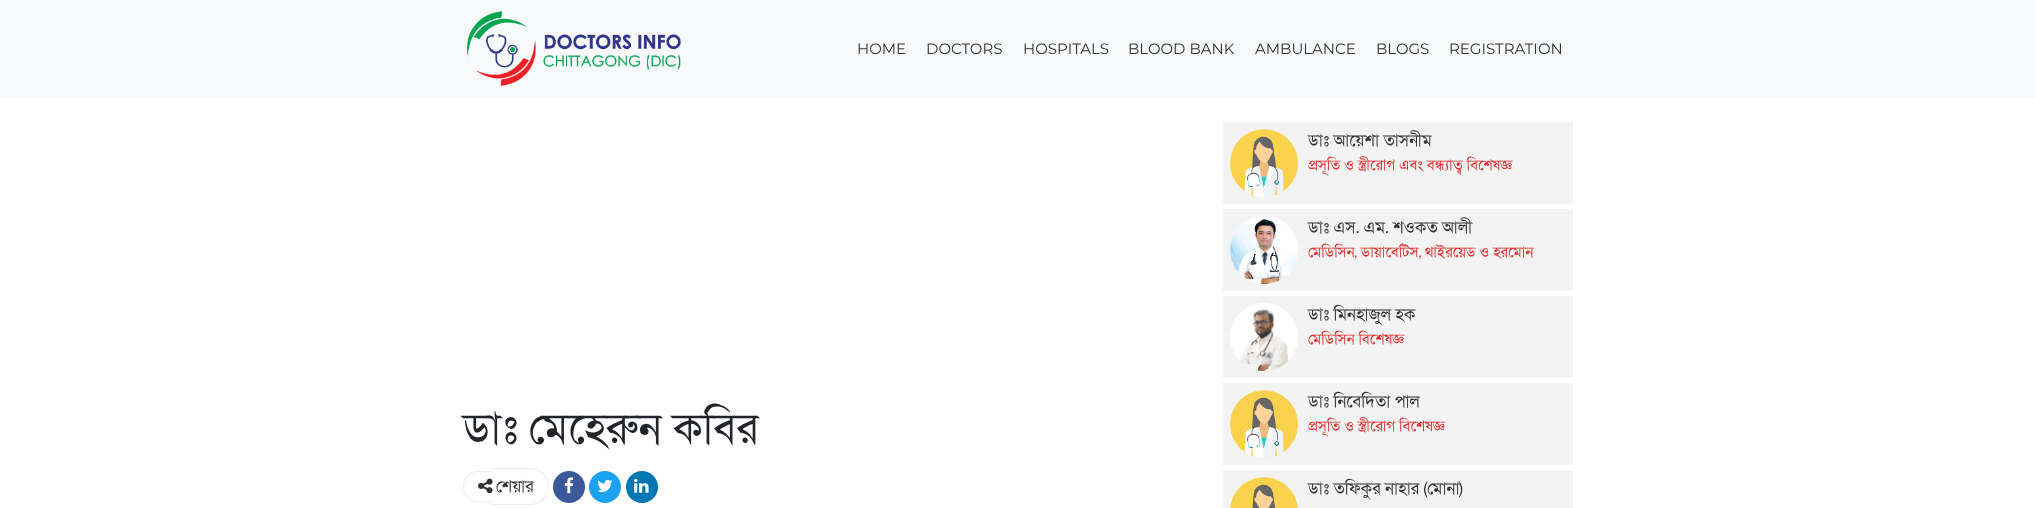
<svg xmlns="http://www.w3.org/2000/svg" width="2035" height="508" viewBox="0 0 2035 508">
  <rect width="100%" height="100%" fill="rgb(255,255,255)"/>
  <rect x="0" y="0" width="2035" height="97" fill="rgb(248,249,250)"/>
  <image x="467" y="11" width="214" height="75" href="pic1.png"/>
  <g font-family="Montserrat" font-size="15" fill="rgb(51,51,51)">
    <text x="857" y="54">HOME</text>
    <text x="926" y="54">DOCTORS</text>
    <text x="1023" y="54">HOSPITALS</text>
    <text x="1128" y="54">BLOOD BANK</text>
    <text x="1255" y="54">AMBULANCE</text>
    <text x="1376" y="54">BLOGS</text>
    <text x="1449" y="54">REGISTRATION</text>
  </g>
  <text x="463" y="443" font-family="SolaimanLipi" font-size="44" fill="rgb(33,37,41)">ডাঃ মেহেরুন কবির</text>
  <path d="M477.5 471H492V502C486.5 502 476.5 503 472 501C457.5 495 461.5 471 477.5 471ZM477.5 472H492V501C487 501 476.5 502 472 500C459 494.5 462.5 472 477.5 472Z" fill="rgb(234,234,234)" fill-rule="evenodd"/>
  <path d="M492 468H530C541 468 549 476 549 486C549 497 541 505 530 505H492ZM492 469H530C540 469 548 477 548 486C548 496 540 504 530 504H492Z" fill="rgb(234,234,234)" fill-rule="evenodd"/>
  <image x="478" y="478" width="15" height="16" href="pic2.png"/>
  <text x="496" y="492" font-family="SolaimanLipi" font-size="17" fill="rgb(51,51,51)">শেয়ার</text>
  <circle cx="569" cy="487" r="16" fill="rgb(59,89,152)"/>
  <image x="564" y="477" width="10" height="17" href="pic3.png"/>
  <circle cx="605" cy="487" r="16" fill="rgb(29,161,243)"/>
  <image x="597" y="479" width="16" height="13" href="pic4.png"/>
  <circle cx="642" cy="487" r="16" fill="rgb(0,119,181)"/>
  <image x="634" y="478" width="15" height="15" href="pic5.png"/>
  <rect x="1223" y="122" width="350" height="82" fill="rgb(243,243,243)"/>
  <image x="1230" y="129" width="68" height="68" href="pic6.png"/>
  <text x="1308" y="146" font-family="SolaimanLipi" font-size="17" fill="rgb(51,51,51)">ডাঃ আয়েশা তাসনীম</text>
  <text x="1308" y="170" font-family="SolaimanLipi" font-size="15" fill="rgb(229,47,47)">প্রসূতি ও স্ত্রীরোগ এবং বন্ধ্যাত্ব বিশেষজ্ঞ</text>
  <rect x="1223" y="209" width="350" height="82" fill="rgb(243,243,243)"/>
  <image x="1230" y="216" width="68" height="68" href="pic7.png"/>
  <text x="1308" y="233" font-family="SolaimanLipi" font-size="17" fill="rgb(51,51,51)">ডাঃ এস. এম. শওকত আলী</text>
  <text x="1308" y="257" font-family="SolaimanLipi" font-size="15" fill="rgb(229,47,47)">মেডিসিন, ডায়াবেটিস, থাইরয়েড ও হরমোন</text>
  <rect x="1223" y="296" width="350" height="82" fill="rgb(243,243,243)"/>
  <image x="1230" y="303" width="68" height="68" href="pic8.png"/>
  <text x="1308" y="320" font-family="SolaimanLipi" font-size="17" fill="rgb(51,51,51)">ডাঃ মিনহাজুল হক</text>
  <text x="1308" y="344" font-family="SolaimanLipi" font-size="15" fill="rgb(229,47,47)">মেডিসিন বিশেষজ্ঞ</text>
  <rect x="1223" y="383" width="350" height="82" fill="rgb(243,243,243)"/>
  <image x="1230" y="390" width="68" height="68" href="pic6.png"/>
  <text x="1308" y="407" font-family="SolaimanLipi" font-size="17" fill="rgb(51,51,51)">ডাঃ নিবেদিতা পাল</text>
  <text x="1308" y="431" font-family="SolaimanLipi" font-size="15" fill="rgb(229,47,47)">প্রসূতি ও স্ত্রীরোগ বিশেষজ্ঞ</text>
  <rect x="1223" y="470" width="350" height="38" fill="rgb(243,243,243)"/>
  <image x="1230" y="477" width="68" height="31" href="pic9.png"/>
  <text x="1308" y="494" font-family="SolaimanLipi" font-size="17" fill="rgb(51,51,51)">ডাঃ তফিকুর নাহার (মোনা)</text>
</svg>
